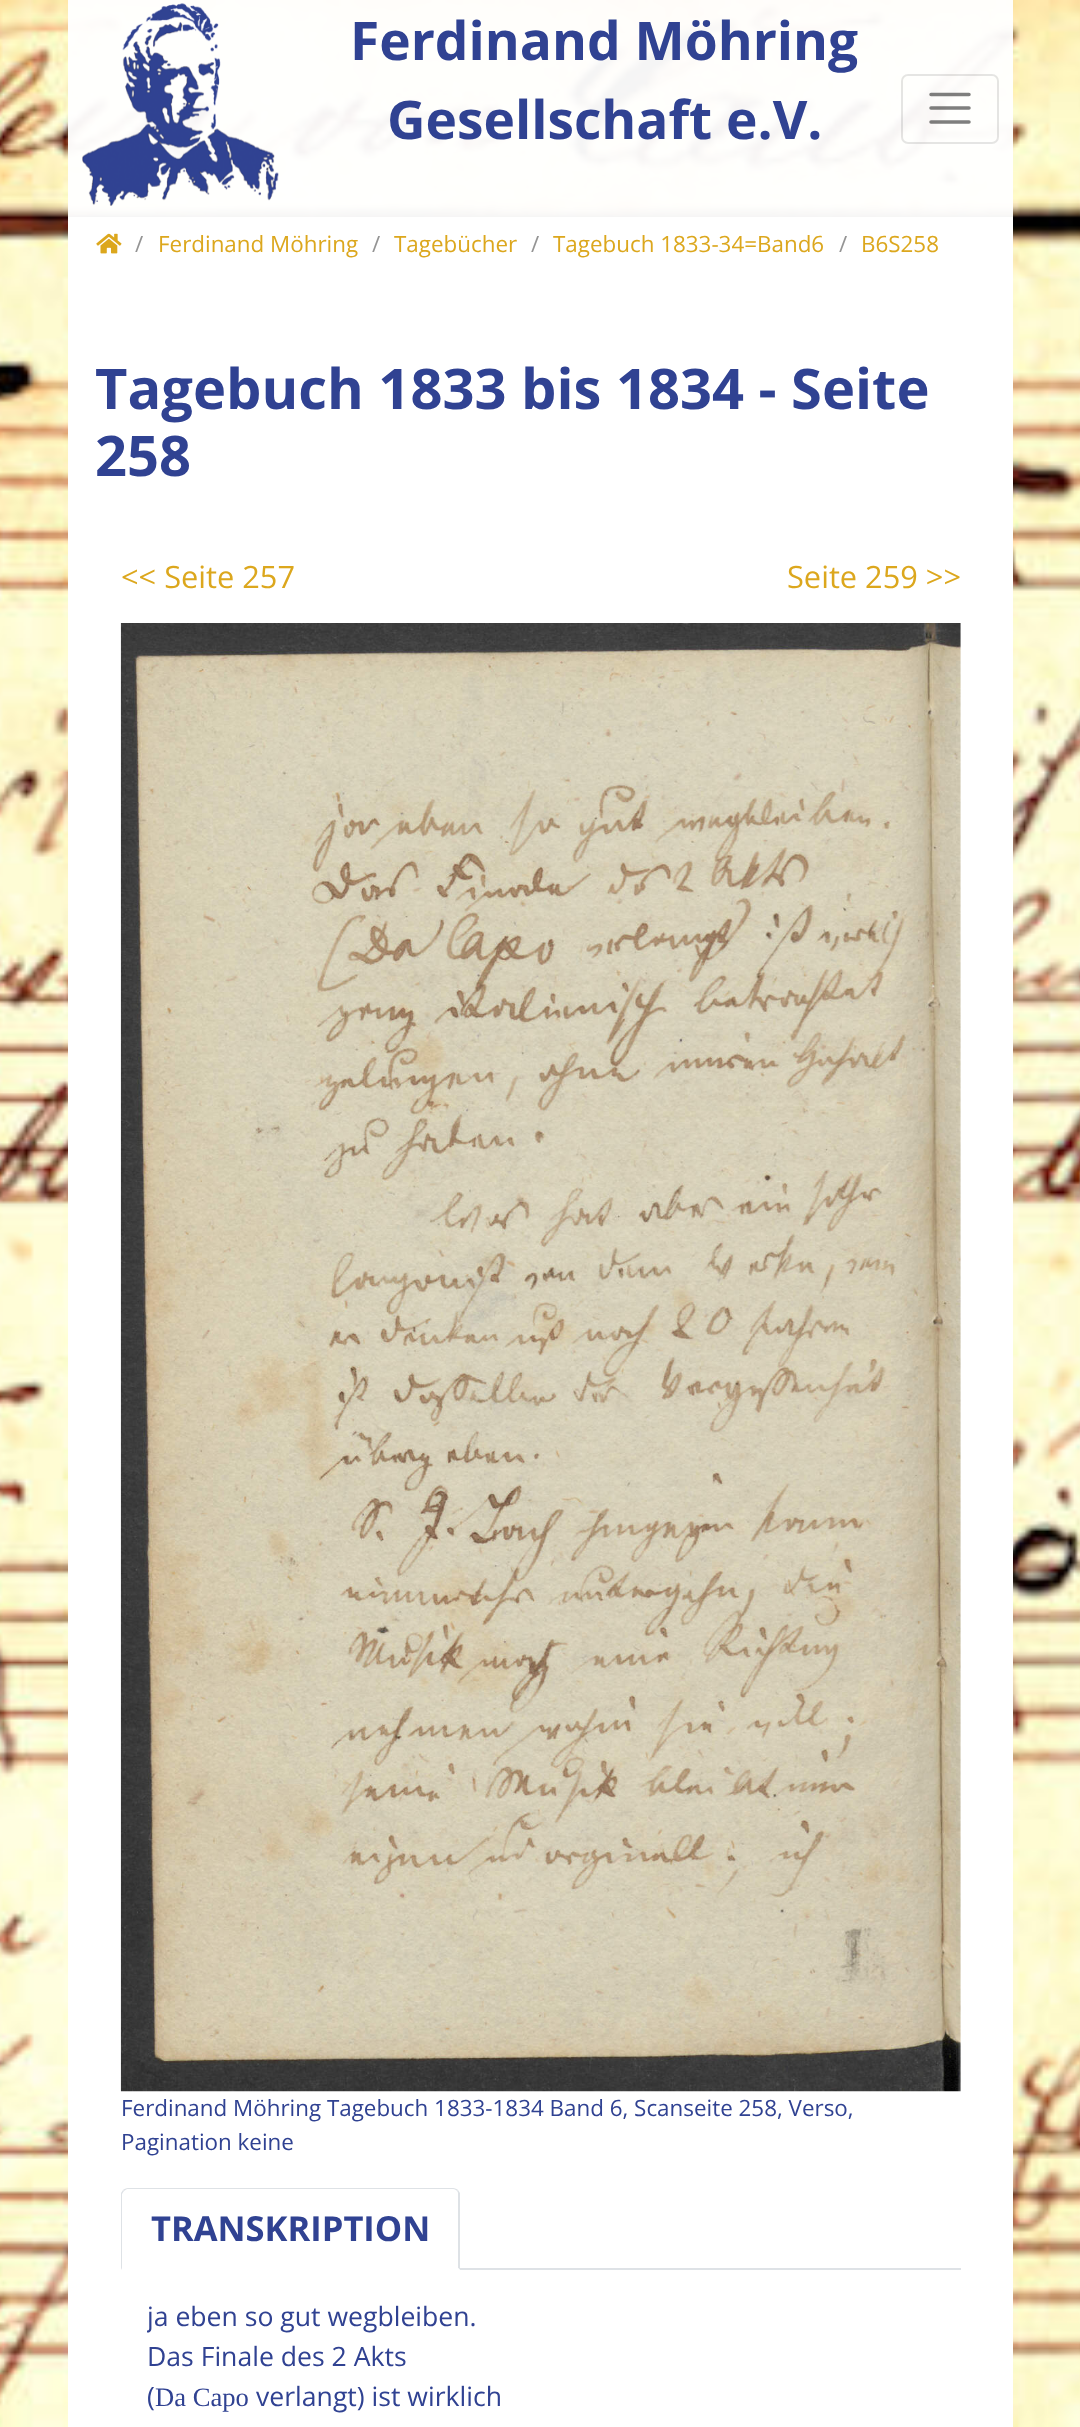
<svg xmlns="http://www.w3.org/2000/svg" width="1080" height="2427" viewBox="0 0 1080 2427">
  <defs>
    <clipPath id="clip1"><rect x="147" y="2296" width="788" height="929"/></clipPath>
  </defs>
  <rect width="100%" height="100%" fill="rgb(255,255,255)"/>
  <image x="0" y="0" width="1080" height="2427" href="pic1.png"/>
  <rect x="68" y="0" width="945" height="217" fill="rgba(255,255,255,0.96)"/>
  <image x="82" y="3" width="197" height="203" href="pic2.png"/>
  <g font-family="Open Sans" font-size="53.25" font-weight="bold" fill="rgb(48,66,146)">
    <text x="350" y="60">Ferdinand Möhring</text>
    <text x="387" y="139">Gesellschaft e.V.</text>
  </g>
  <rect x="902" y="75" width="96" height="68" rx="6" fill="none" stroke="rgba(0,0,0,0.1)" stroke-width="2"/>
  <path d="M931 94.5H969M931 108H969M931 122H969" fill="none" stroke="rgba(0,0,0,0.5)" stroke-width="3.5" stroke-linecap="round"/>
  <rect x="68" y="217" width="945" height="2210" fill="rgb(255,255,255)"/>
  <image x="96" y="233" width="26" height="21" href="pic3.png"/>
  <text x="135" y="252" font-family="Open Sans" font-size="22.4" fill="rgb(148,148,148)">/</text>
  <text x="158" y="252" font-family="Open Sans" font-size="22.4" fill="rgb(220,167,29)">Ferdinand Möhring</text>
  <text x="372" y="252" font-family="Open Sans" font-size="22.4" fill="rgb(148,148,148)">/</text>
  <text x="394" y="252" font-family="Open Sans" font-size="22.4" fill="rgb(220,167,29)">Tagebücher</text>
  <text x="531" y="252" font-family="Open Sans" font-size="22.4" fill="rgb(148,148,148)">/</text>
  <text x="553" y="252" font-family="Open Sans" font-size="22.4" fill="rgb(220,167,29)">Tagebuch 1833-34=Band6</text>
  <text x="839" y="252" font-family="Open Sans" font-size="22.4" fill="rgb(148,148,148)">/</text>
  <text x="861" y="252" font-family="Open Sans" font-size="22.4" fill="rgb(220,167,29)">B6S258</text>
  <g font-family="Open Sans" font-size="56" font-weight="bold" fill="rgb(48,66,146)">
    <text>
      <tspan x="95" y="409">Tagebuch 1833 bis 1834 - Seite</tspan>
      <tspan x="95" y="476">258</tspan>
    </text>
  </g>
  <g font-family="Open Sans" font-size="30.75" fill="rgb(220,167,29)">
    <text x="121" y="588">&lt;&lt; Seite 257</text>
    <text x="787" y="588">Seite 259 &gt;&gt;</text>
  </g>
  <image x="120" y="623" width="841" height="1469" href="pic4.png"/>
  <g font-family="Open Sans" font-size="22.4" fill="rgb(48,66,146)">
    <text>
      <tspan x="121" y="2116">Ferdinand Möhring Tagebuch 1833-1834 Band 6, Scanseite 258, Verso,</tspan>
      <tspan x="121" y="2150">Pagination keine</tspan>
    </text>
  </g>
  <rect x="460" y="2268" width="501" height="2" fill="rgb(222,226,230)"/>
  <path d="M128 2188C126 2188 124 2189 123 2190L124 2191L127 2189H453C455 2189 456 2190 457 2191L458 2190C457 2189 455 2188 453 2188Z" fill="rgb(222,226,230)"/>
  <path d="M460 2270V2193L458 2190L457 2191C458 2192 458 2193 458 2194V2268Z" fill="rgb(222,226,230)"/>
  <path d="M121 2270L122 2268H458L460 2270Z" fill="rgb(255,255,255)"/>
  <path d="M123 2190L121 2193V2270L122 2268V2194L124 2191Z" fill="rgb(222,226,230)"/>
  <text x="151" y="2241" font-family="Open Sans" font-size="34.5" font-weight="bold" fill="rgb(48,66,146)">TRANSKRIPTION</text>
  <g clip-path="url(#clip1)">
    <text x="147" y="2326" font-family="Open Sans" font-size="26.6" fill="rgb(48,66,146)">ja eben so gut wegbleiben.</text>
  </g>
  <g font-family="Open Sans" font-size="26.6" fill="rgb(48,66,146)">
    <text>
      <tspan x="147" y="2366">Das Finale des 2 Akts</tspan>
      <tspan x="147" y="2406">(</tspan>
    </text>
  </g>
  <text x="155" y="2406" font-family="Liberation Serif" font-size="26.6" fill="rgb(48,66,146)">Da Capo</text>
  <text x="256" y="2406" font-family="Open Sans" font-size="26.6" fill="rgb(48,66,146)">verlangt) ist wirklich</text>
</svg>
